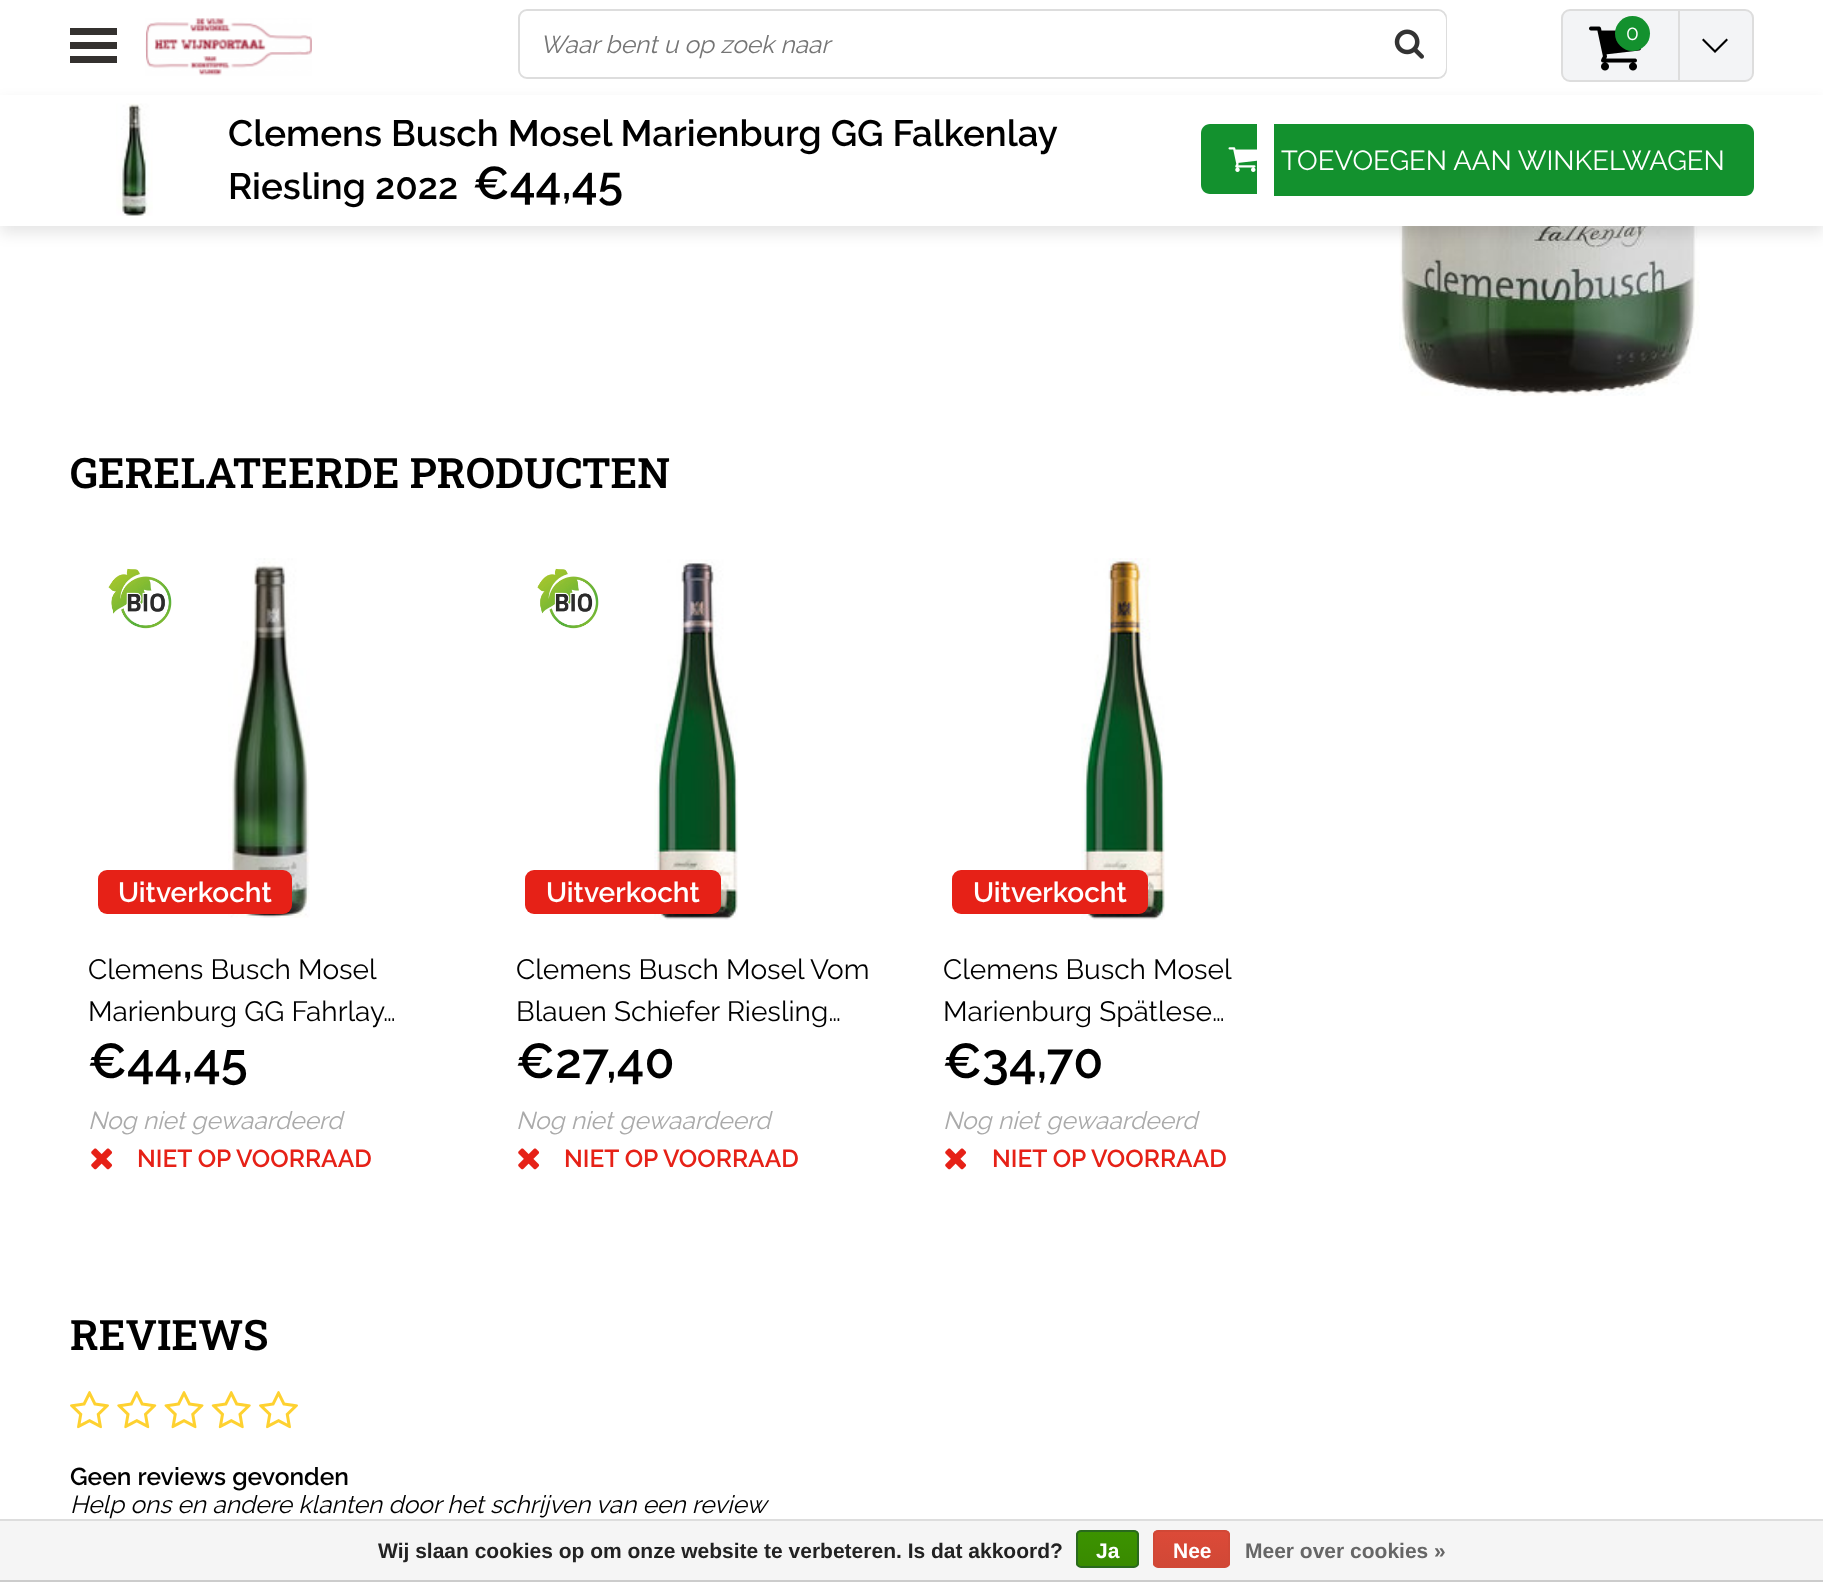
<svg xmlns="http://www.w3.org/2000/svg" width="1823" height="1582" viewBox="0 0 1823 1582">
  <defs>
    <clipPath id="clip1"><rect x="1076" y="1530" width="63" height="38" rx="5"/></clipPath>
    <linearGradient id="g1" gradientUnits="userSpaceOnUse" x1="1108" y1="1531" x2="1108" y2="1566"><stop offset="0" stop-color="rgb(60,147,0)"/><stop offset="1" stop-color="rgb(57,138,0)"/></linearGradient>
    <clipPath id="clip2"><rect x="1153" y="1530" width="77" height="38" rx="5"/></clipPath>
    <linearGradient id="g2" gradientUnits="userSpaceOnUse" x1="1192" y1="1531" x2="1192" y2="1566"><stop offset="0" stop-color="rgb(220,74,56)"/><stop offset="1" stop-color="rgb(209,72,54)"/></linearGradient>
  </defs>
  <rect width="100%" height="100%" fill="rgb(255,255,255)"/>
  <rect x="70" y="28" width="47" height="7" fill="rgb(52,49,47)"/>
  <rect x="70" y="42" width="47" height="7" fill="rgb(52,49,47)"/>
  <rect x="70" y="56" width="47" height="7" fill="rgb(52,49,47)"/>
  <image x="145" y="18" width="167" height="58" href="pic1.png"/>
  <rect x="519" y="10" width="927" height="68" rx="8" fill="none" stroke="rgb(221,221,221)" stroke-width="2"/>
  <rect x="520" y="11" width="926" height="66" rx="9" fill="rgb(255,255,255)"/>
  <text x="540" y="53" font-family="Raleway" font-size="24.5" font-style="italic" fill="rgb(117,117,117)">Waar bent u op zoek naar</text>
  <image x="1394" y="29" width="30" height="30" href="pic2.png"/>
  <rect x="1562" y="10" width="191" height="71" rx="8" fill="rgb(243,244,246)" stroke="rgb(221,221,221)" stroke-width="2"/>
  <image x="1589" y="26" width="52" height="45" href="pic3.png"/>
  <circle cx="1632.5" cy="33.5" r="17.5" fill="rgb(19,145,46)"/>
  <text x="1626" y="40" font-family="Raleway" font-size="21" fill="rgb(255,255,255)">0</text>
  <path d="M1678 82V10H1680V80Z" fill="rgb(221,221,221)"/>
  <path d="M1713.5 51.5L1715 53L1728 40L1726.5 38.5L1715 50L1703.5 38.5L1702 40Z" fill="rgb(0,0,0)"/>
  <image x="1399" y="226" width="301" height="170" href="pic6.png"/>
  <rect x="0" y="102" width="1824" height="131" fill="rgba(0,0,0,0.1)" filter="blur(7.5px)"/>
  <rect x="0" y="95" width="1823" height="131" fill="rgb(255,255,255)"/>
  <image x="116" y="103" width="37" height="113" href="pic4.png"/>
  <g font-family="Raleway" font-size="36.75" font-weight="600" fill="rgb(0,0,0)">
    <text>
      <tspan x="228" y="146">Clemens Busch Mosel Marienburg GG Falkenlay</tspan>
      <tspan x="228" y="199">Riesling 2022</tspan>
    </text>
  </g>
  <text x="473" y="199" font-family="Raleway" font-size="46" font-weight="600" fill="rgb(0,0,0)">€44,45</text>
  <path d="M1210 124H1257V194H1210C1205 194 1201 190 1201 185V133C1201 128 1205 124 1210 124Z" fill="rgb(19,145,46)"/>
  <rect x="1274" y="124" width="7" height="72" fill="rgb(19,145,46)"/>
  <path d="M1281 124H1745C1750 124 1754 128 1754 133V187C1754 192 1750 196 1745 196H1281Z" fill="rgb(19,145,46)"/>
  <image x="1228" y="147" width="29" height="25" href="pic5.png"/>
  <text x="1281" y="170" font-family="Raleway" font-size="27.5" fill="rgb(255,255,255)">TOEVOEGEN AAN WINKELWAGEN</text>
  <text x="70" y="488" font-family="Roboto Slab" font-size="42" font-weight="600" fill="rgb(0,0,0)">GERELATEERDE PRODUCTEN</text>
  <image x="108" y="568" width="64" height="61" href="pic7.png"/>
  <image x="228" y="558" width="82" height="360" href="pic8.png"/>
  <rect x="98" y="870" width="194" height="44" rx="9" fill="rgb(230,33,23)"/>
  <text x="118" y="902" font-family="Raleway" font-size="28" font-weight="600" fill="rgb(255,255,255)">Uitverkocht</text>
  <g font-family="Raleway" font-size="28" fill="rgb(0,0,0)">
    <text>
      <tspan x="88" y="979">Clemens Busch Mosel</tspan>
      <tspan x="88" y="1021">Marienburg GG Fahrlay…</tspan>
    </text>
  </g>
  <text x="88" y="1078" font-family="Raleway" font-size="49" font-weight="600" fill="rgb(0,0,0)">€44,45</text>
  <text x="88" y="1129" font-family="Raleway" font-size="24.5" font-style="italic" fill="rgb(170,170,170)">Nog niet gewaardeerd</text>
  <image x="91" y="1148" width="22" height="22" href="pic9.png"/>
  <text x="137" y="1167" font-family="Raleway" font-size="24.5" font-weight="600" fill="rgb(230,33,23)">NIET OP VOORRAAD</text>
  <image x="537" y="568" width="62" height="61" href="pic10.png"/>
  <image x="654" y="559" width="84" height="361" href="pic11.png"/>
  <rect x="525" y="870" width="196" height="44" rx="9" fill="rgb(230,33,23)"/>
  <text x="546" y="902" font-family="Raleway" font-size="28" font-weight="600" fill="rgb(255,255,255)">Uitverkocht</text>
  <g font-family="Raleway" font-size="28" fill="rgb(0,0,0)">
    <text>
      <tspan x="516" y="979">Clemens Busch Mosel Vom</tspan>
      <tspan x="516" y="1021">Blauen Schiefer Riesling…</tspan>
    </text>
  </g>
  <text x="516" y="1078" font-family="Raleway" font-size="49" font-weight="600" fill="rgb(0,0,0)">€27,40</text>
  <text x="516" y="1129" font-family="Raleway" font-size="24.5" font-style="italic" fill="rgb(170,170,170)">Nog niet gewaardeerd</text>
  <image x="518" y="1148" width="22" height="22" href="pic9.png"/>
  <text x="564" y="1167" font-family="Raleway" font-size="24.5" font-weight="600" fill="rgb(230,33,23)">NIET OP VOORRAAD</text>
  <image x="1081" y="558" width="84" height="362" href="pic12.png"/>
  <rect x="952" y="870" width="196" height="44" rx="9" fill="rgb(230,33,23)"/>
  <text x="973" y="902" font-family="Raleway" font-size="28" font-weight="600" fill="rgb(255,255,255)">Uitverkocht</text>
  <g font-family="Raleway" font-size="28" fill="rgb(0,0,0)">
    <text>
      <tspan x="943" y="979">Clemens Busch Mosel</tspan>
      <tspan x="943" y="1021">Marienburg Spätlese…</tspan>
    </text>
  </g>
  <text x="943" y="1078" font-family="Raleway" font-size="49" font-weight="600" fill="rgb(0,0,0)">€34,70</text>
  <text x="943" y="1129" font-family="Raleway" font-size="24.5" font-style="italic" fill="rgb(170,170,170)">Nog niet gewaardeerd</text>
  <image x="945" y="1148" width="22" height="22" href="pic9.png"/>
  <text x="992" y="1167" font-family="Raleway" font-size="24.5" font-weight="600" fill="rgb(230,33,23)">NIET OP VOORRAAD</text>
  <text x="70" y="1350" font-family="Roboto Slab" font-size="42" font-weight="600" fill="rgb(0,0,0)">REVIEWS</text>
  <image x="70" y="1391" width="39" height="38" href="pic13.png"/>
  <image x="117" y="1391" width="40" height="38" href="pic14.png"/>
  <image x="164" y="1391" width="40" height="38" href="pic15.png"/>
  <image x="211" y="1391" width="40" height="38" href="pic16.png"/>
  <image x="259" y="1391" width="39" height="38" href="pic13.png"/>
  <text x="70" y="1485" font-family="Raleway" font-size="24.5" font-weight="600" fill="rgb(0,0,0)">Geen reviews gevonden</text>
  <text x="70" y="1513" font-family="Raleway" font-size="24.5" font-style="italic" fill="rgb(0,0,0)">Help ons en andere klanten door het schrijven van een review</text>
  <rect x="0" y="1521" width="1823" height="59" fill="rgb(245,245,245)"/>
  <rect x="0" y="1519" width="1823" height="2" fill="rgb(221,221,221)"/>
  <rect x="0" y="1580" width="1823" height="2" fill="rgb(204,204,204)"/>
  <text x="378" y="1558" font-family="Liberation Sans" font-size="21" font-weight="bold" fill="rgb(34,34,34)">Wij slaan cookies op om onze website te verbeteren. Is dat akkoord?</text>
  <g clip-path="url(#clip1)">
    <rect x="1076" y="1531" width="63" height="35" fill="url(#g1)"/>
  </g>
  <rect x="1077" y="1531" width="61" height="36" rx="4" fill="none" stroke="rgb(41,105,29)" stroke-width="2"/>
  <text x="1096" y="1558" font-family="Liberation Sans" font-size="21" font-weight="bold" fill="rgb(255,255,255)">Ja</text>
  <g clip-path="url(#clip2)">
    <rect x="1153" y="1531" width="77" height="35" fill="url(#g2)"/>
  </g>
  <rect x="1154" y="1531" width="75" height="36" rx="4" fill="none" stroke="rgb(209,72,54)" stroke-width="2"/>
  <text x="1173" y="1558" font-family="Liberation Sans" font-size="21" font-weight="bold" fill="rgb(255,255,255)">Nee</text>
  <text x="1245" y="1558" font-family="Liberation Sans" font-size="21" font-weight="bold" fill="rgb(102,102,102)">Meer over cookies »</text>
</svg>
